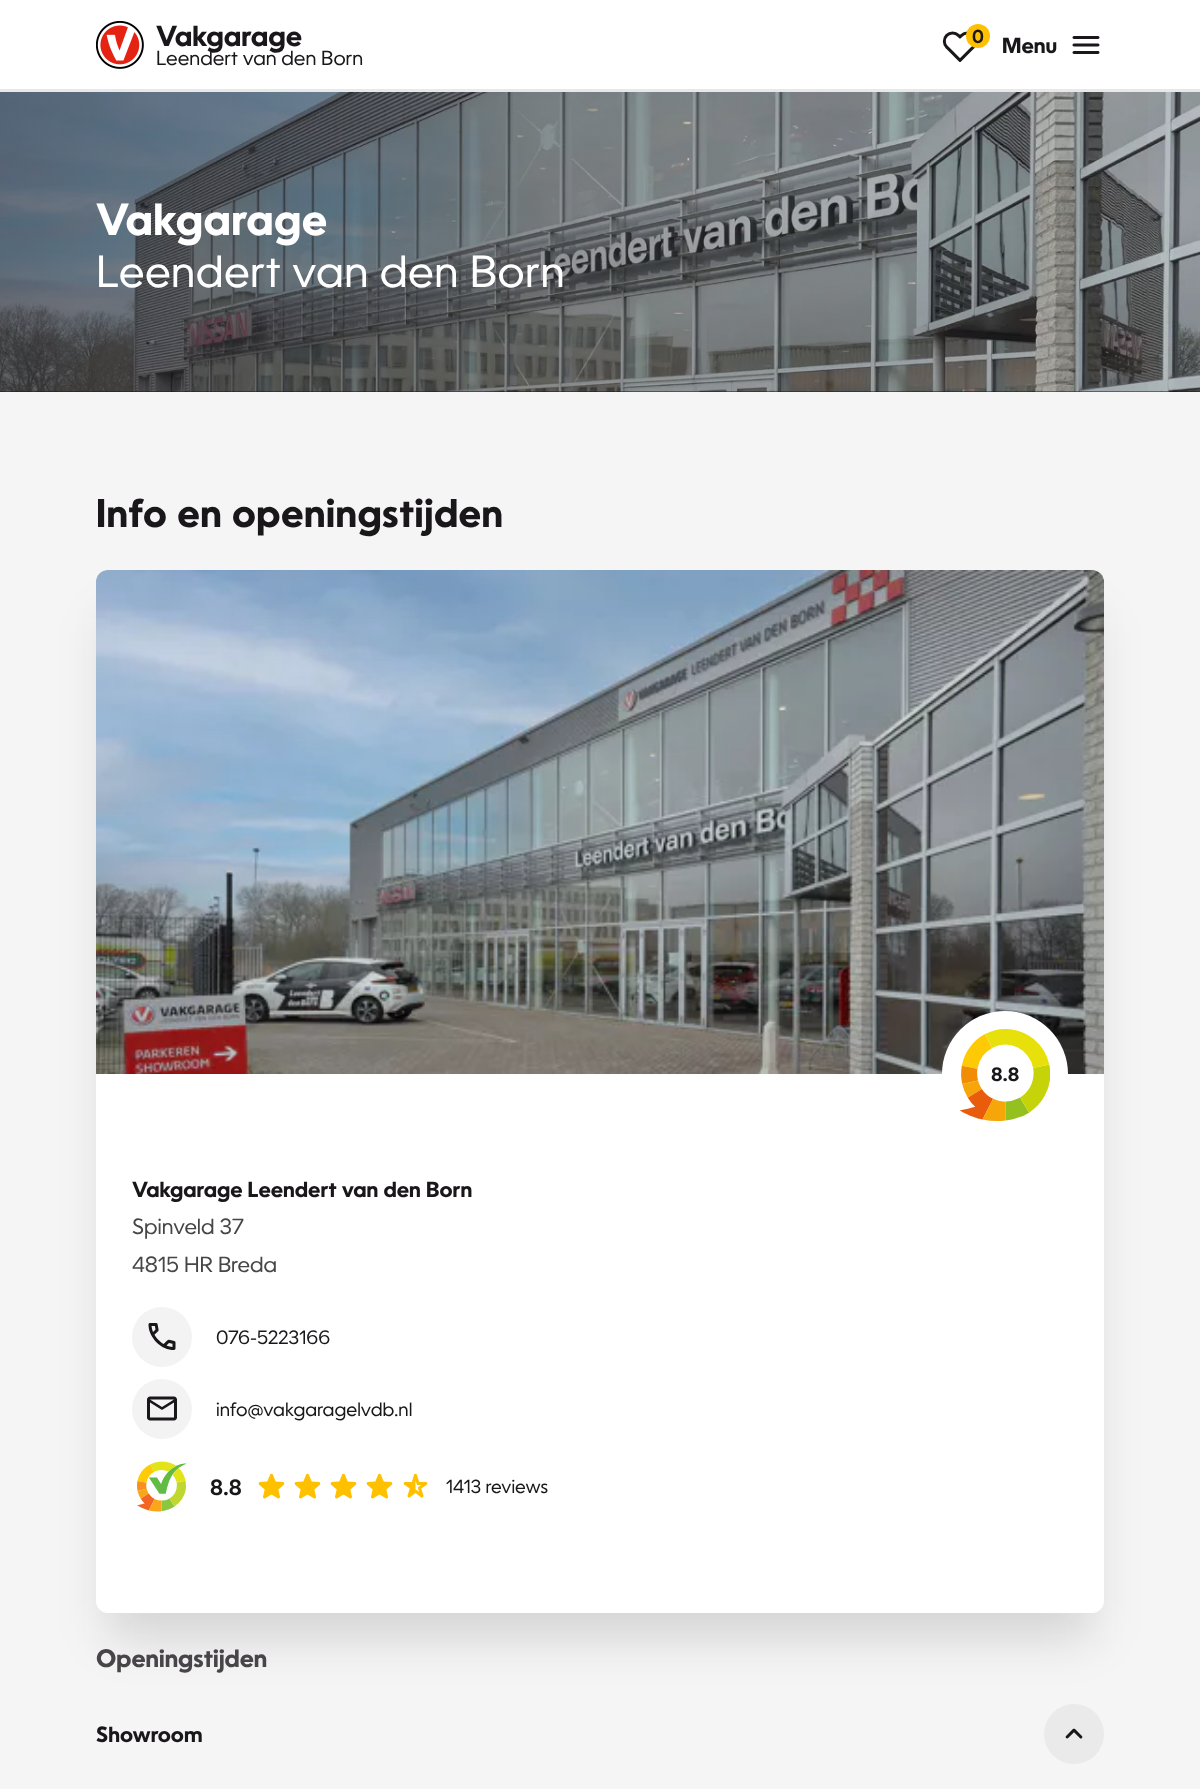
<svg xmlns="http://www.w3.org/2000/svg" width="1200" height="1789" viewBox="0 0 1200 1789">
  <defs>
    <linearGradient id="g1" gradientUnits="userSpaceOnUse" x1="0" y1="242" x2="1200" y2="241"><stop offset="0" stop-color="rgb(26,23,27)" stop-opacity="0.5"/><stop offset="1" stop-color="rgb(26,23,27)" stop-opacity="0"/></linearGradient>
  </defs>
  <rect width="100%" height="100%" fill="rgb(245,245,245)"/>
  <rect x="0" y="0" width="1200" height="89" fill="rgb(255,255,255)"/>
  <rect x="0" y="89" width="1200" height="3" fill="rgb(232,232,232)"/>
  <image x="96" y="21" width="48" height="48" href="pic1.png"/>
  <text x="156" y="46" font-family="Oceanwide" font-size="27.75" font-weight="bold" fill="rgb(26,23,27)">Vakgarage</text>
  <text x="156" y="65" font-family="Oceanwide" font-size="19.5" fill="rgb(26,23,27)">Leendert van den Born</text>
  <image x="942" y="31" width="33" height="31" href="pic2.png"/>
  <circle cx="978" cy="36" r="12" fill="rgb(255,192,0)"/>
  <text x="972" y="43" font-family="Oceanwide" font-size="18" font-weight="600" fill="rgb(26,23,27)">0</text>
  <text x="1002" y="53" font-family="Oceanwide" font-size="21" font-weight="bold" fill="rgb(26,23,27)">Menu</text>
  <image x="1072" y="36" width="28" height="18" href="pic3.png"/>
  <rect x="0" y="391" width="1200" height="1" fill="rgb(26,23,27)"/>
  <image x="0" y="92" width="1200" height="300" href="pic4.png"/>
  <rect x="0" y="92" width="1148" height="300" fill="url(#g1)"/>
  <text x="96" y="235" font-family="Oceanwide" font-size="43.25" font-weight="bold" letter-spacing="0.45" fill="rgb(255,255,255)">Vakgarage</text>
  <text x="96" y="287" font-family="Oceanwide" font-size="43.25" letter-spacing="0.45" fill="rgb(255,255,255)">Leendert van den Born</text>
  <text x="96" y="527" font-family="Oceanwide" font-size="38.4" font-weight="bold" letter-spacing="0.45" fill="rgb(26,23,27)">Info en openingstijden</text>
  <rect x="108" y="618" width="984" height="1019" fill="rgba(26,23,27,0.15)" filter="blur(24px)"/>
  <rect x="96" y="570" width="1008" height="1043" rx="12" fill="rgb(255,255,255)"/>
  <image x="96" y="570" width="1008" height="504" href="pic5.png"/>
  <image x="942" y="1011" width="126" height="110" href="pic6.png"/>
  <text x="991" y="1081" font-family="Oceanwide" font-size="18.4" font-weight="bold" fill="rgb(26,23,27)">8.8</text>
  <text x="132" y="1197" font-family="Oceanwide" font-size="21" font-weight="bold" fill="rgb(26,23,27)">Vakgarage Leendert van den Born</text>
  <g font-family="Oceanwide" font-size="21" fill="rgb(72,69,73)">
    <text>
      <tspan x="132" y="1234">Spinveld 37</tspan>
      <tspan x="132" y="1272">4815 HR Breda</tspan>
    </text>
  </g>
  <circle cx="162" cy="1337" r="30" fill="rgb(244,243,244)"/>
  <image x="148" y="1323" width="28" height="27" href="pic7.png"/>
  <text x="216" y="1344" font-family="Oceanwide" font-size="18.4" fill="rgb(26,23,27)">076-5223166</text>
  <circle cx="162" cy="1409" r="30" fill="rgb(244,243,244)"/>
  <image x="147" y="1396" width="30" height="25" href="pic8.png"/>
  <text x="216" y="1416" font-family="Oceanwide" font-size="18.4" fill="rgb(26,23,27)">info@vakgaragelvdb.nl</text>
  <image x="137" y="1461" width="50" height="51" href="pic9.png"/>
  <text x="210" y="1495" font-family="Oceanwide" font-size="21" font-weight="600" fill="rgb(26,23,27)">8.8</text>
  <image x="258" y="1473" width="27" height="26" href="pic10.png"/>
  <image x="294" y="1473" width="27" height="26" href="pic10.png"/>
  <image x="330" y="1473" width="27" height="26" href="pic10.png"/>
  <image x="366" y="1473" width="27" height="26" href="pic10.png"/>
  <image x="403" y="1473" width="25" height="25" href="pic11.png"/>
  <text x="446" y="1493" font-family="Oceanwide" font-size="18" fill="rgb(26,23,27)">1413 reviews</text>
  <text x="96" y="1667" font-family="Oceanwide" font-size="24" font-weight="bold" fill="rgb(72,69,73)">Openingstijden</text>
  <text x="96" y="1742" font-family="Oceanwide" font-size="21" font-weight="bold" fill="rgb(26,23,27)">Showroom</text>
  <circle cx="1074" cy="1734" r="30" fill="rgb(234,234,234)"/>
  <image x="1065" y="1728" width="18" height="11" href="pic12.png"/>
</svg>
